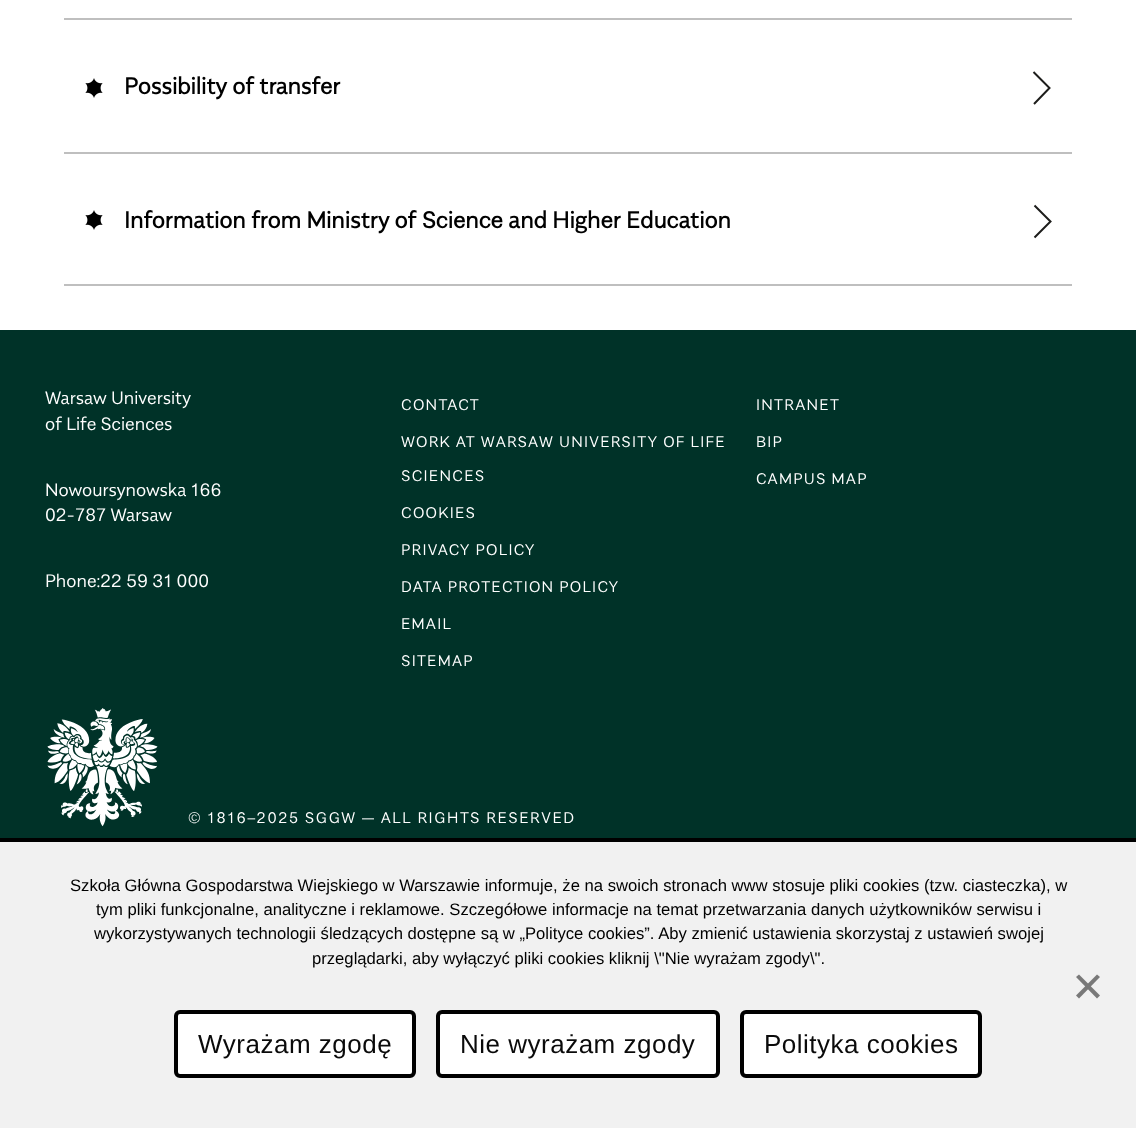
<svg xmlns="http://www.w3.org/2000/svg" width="1136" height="1128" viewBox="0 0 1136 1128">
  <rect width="100%" height="100%" fill="rgb(255,255,255)"/>
  <rect x="64" y="18" width="1008" height="2" fill="rgb(191,191,191)"/>
  <image x="85" y="78" width="18" height="20" href="pic1.png"/>
  <text x="124" y="94" font-family="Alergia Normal" font-size="23.05" font-weight="bold" fill="rgb(0,0,0)">Possibility of transfer</text>
  <path d="M1034 104L1049.5 88L1033.5 72" fill="none" stroke="rgb(29,29,27)" stroke-width="2"/>
  <rect x="64" y="152" width="1008" height="2" fill="rgb(191,191,191)"/>
  <image x="85" y="210" width="18" height="20" href="pic1.png"/>
  <text x="124" y="228" font-family="Alergia Normal" font-size="23.05" font-weight="bold" fill="rgb(0,0,0)">Information from Ministry of Science and Higher Education</text>
  <path d="M1034.5 237.5L1050.5 221.5L1034.5 205.5" fill="none" stroke="rgb(29,29,27)" stroke-width="2"/>
  <rect x="64" y="284" width="1008" height="2" fill="rgb(191,191,191)"/>
  <rect x="0" y="330" width="1136" height="508" fill="rgb(0,50,40)"/>
  <g font-family="Alergia Normal" font-size="18" font-weight="300" fill="rgb(255,255,255)">
    <text>
      <tspan x="45" y="404">Warsaw University</tspan>
      <tspan x="45" y="430">of Life Sciences</tspan>
    </text>
    <text>
      <tspan x="45" y="496">Nowoursynowska 166</tspan>
      <tspan x="45" y="521">02-787 Warsaw</tspan>
    </text>
    <text x="45" y="587">Phone:22 59 31 000</text>
  </g>
  <g font-family="Alergia Normal" font-size="15.35" font-weight="300" letter-spacing="1.25" fill="rgb(255,255,255)">
    <text x="401" y="410">CONTACT</text>
    <text x="401" y="447">WORK AT WARSAW UNIVERSITY OF LIFE</text>
    <text x="401" y="481">SCIENCES</text>
    <text x="401" y="518">COOKIES</text>
    <text x="401" y="555">PRIVACY POLICY</text>
    <text x="401" y="592">DATA PROTECTION POLICY</text>
    <text x="401" y="629">EMAIL</text>
    <text x="401" y="666">SITEMAP</text>
    <text x="756" y="410">INTRANET</text>
    <text x="756" y="447">BIP</text>
    <text x="756" y="484">CAMPUS MAP</text>
  </g>
  <image x="47" y="708" width="111" height="119" href="pic2.png"/>
  <text x="188" y="823" font-family="Alergia Normal" font-size="15.35" font-weight="300" letter-spacing="1.55" fill="rgb(255,255,255)">© 1816–2025 SGGW — ALL RIGHTS RESERVED</text>
  <rect x="0" y="842" width="1136" height="286" fill="rgb(241,241,241)"/>
  <rect x="0" y="838" width="1136" height="4" fill="rgb(0,0,0)"/>
  <g font-family="Liberation Sans" font-size="16.65" fill="rgb(0,0,0)">
    <text x="70" y="891">Szkoła Główna Gospodarstwa Wiejskiego w Warszawie informuje, że na swoich stronach www stosuje pliki cookies (tzw. ciasteczka), w</text>
    <text x="96" y="915">tym pliki funkcjonalne, analityczne i reklamowe. Szczegółowe informacje na temat przetwarzania danych użytkowników serwisu i</text>
    <text x="94" y="939">wykorzystywanych technologii śledzących dostępne są w „Polityce cookies”. Aby zmienić ustawienia skorzystaj z ustawień swojej</text>
    <text x="312" y="964">przeglądarki, aby wyłączyć pliki cookies kliknij \"Nie wyrażam zgody\".</text>
  </g>
  <path d="M1097 974.5L1100 977L1079 998.5L1076 995.5Z" fill="rgb(121,121,121)"/>
  <path d="M1076 977L1079 974.5L1100 995.5L1097 998.5Z" fill="rgb(121,121,121)"/>
  <rect x="176" y="1012" width="238" height="64" rx="4" fill="rgb(255,255,255)" stroke="rgb(0,0,0)" stroke-width="4"/>
  <text x="198" y="1053" font-family="Liberation Sans" font-size="26" letter-spacing="0.5" fill="rgb(10,10,10)">Wyrażam zgodę</text>
  <rect x="438" y="1012" width="280" height="64" rx="4" fill="rgb(255,255,255)" stroke="rgb(0,0,0)" stroke-width="4"/>
  <text x="460" y="1053" font-family="Liberation Sans" font-size="26" letter-spacing="0.5" fill="rgb(10,10,10)">Nie wyrażam zgody</text>
  <rect x="742" y="1012" width="238" height="64" rx="4" fill="rgb(255,255,255)" stroke="rgb(0,0,0)" stroke-width="4"/>
  <text x="764" y="1053" font-family="Liberation Sans" font-size="26" letter-spacing="0.5" fill="rgb(10,10,10)">Polityka cookies</text>
</svg>
